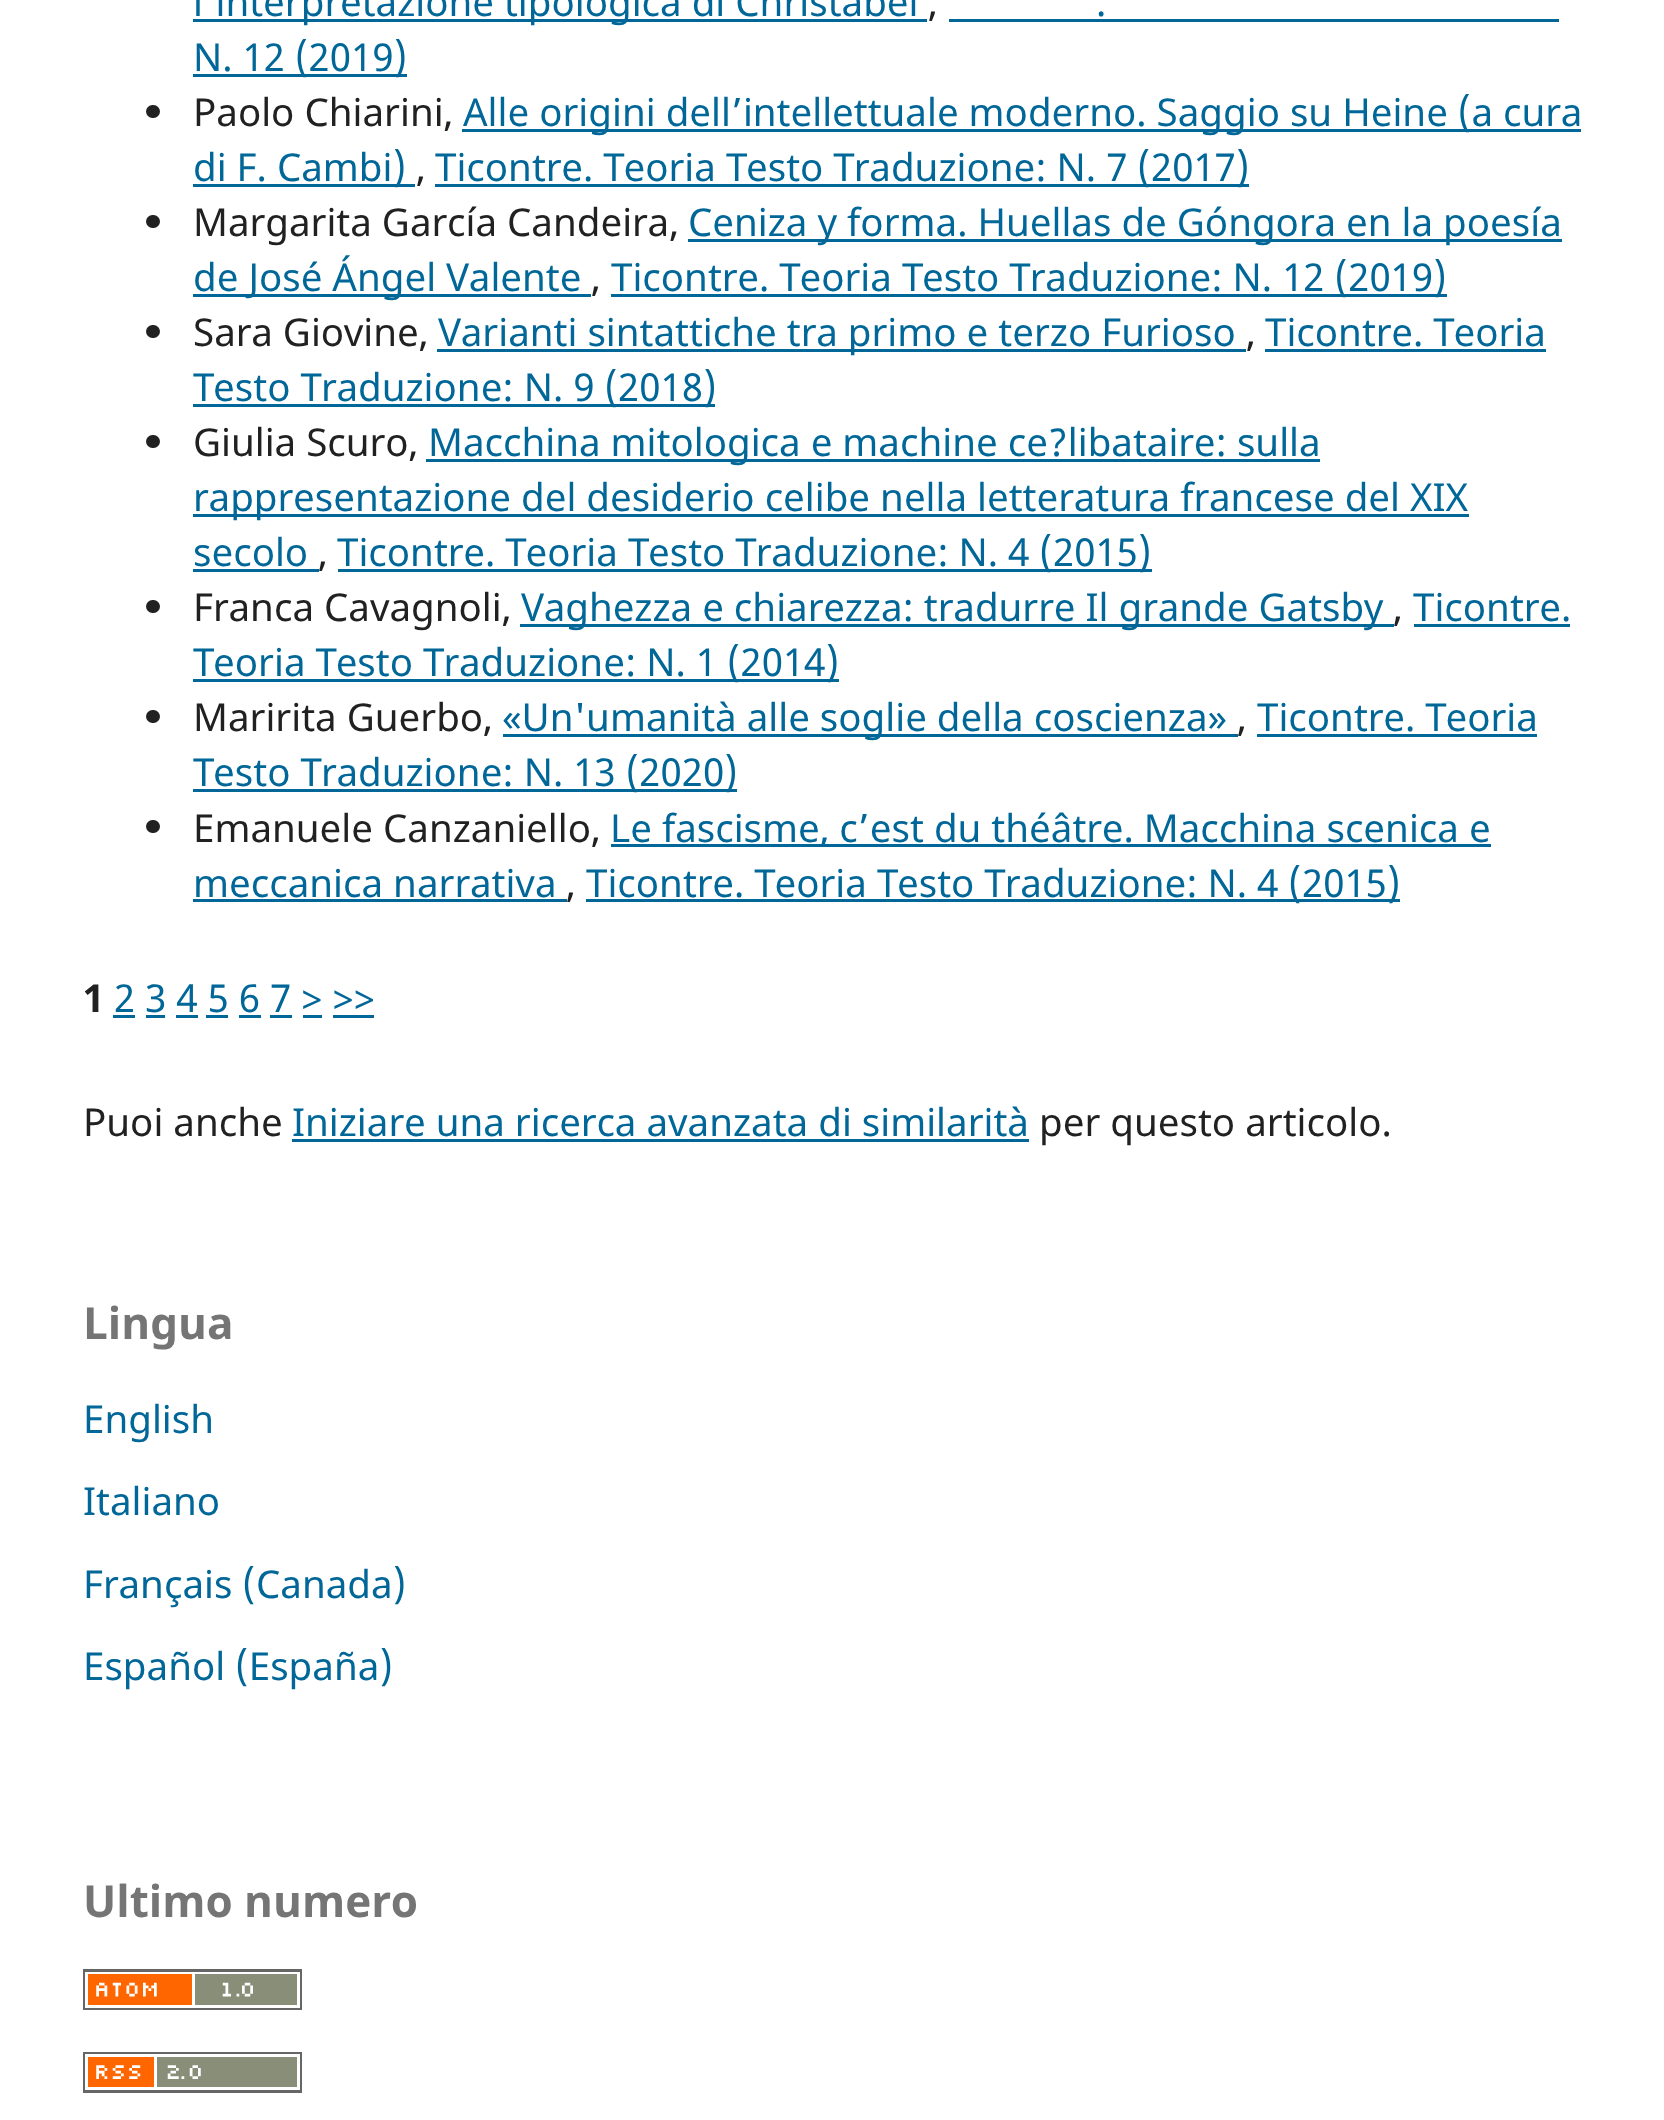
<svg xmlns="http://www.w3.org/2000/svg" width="1664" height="2120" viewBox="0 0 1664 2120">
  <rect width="100%" height="100%" fill="rgb(255,255,255)"/>
  <rect x="193" y="19" width="734" height="3" fill="rgb(0,103,152)"/>
  <text x="193" y="16" font-family="Noto Sans" font-size="38.5" fill="rgb(0,103,152)">l'interpretazione tipologica di Christabel</text>
  <text x="928" y="16" font-family="Noto Sans" font-size="38.5" fill="rgb(33,33,33)">,</text>
  <text x="1096" y="16" font-family="Noto Sans" font-size="38.5" fill="rgb(0,103,152)">.</text>
  <rect x="949" y="19" width="610" height="3" fill="rgb(0,103,152)"/>
  <rect x="193" y="74" width="214" height="3" fill="rgb(0,103,152)"/>
  <text x="193" y="71" font-family="Noto Sans" font-size="38.5" fill="rgb(0,103,152)">N. 12 (2019)</text>
  <rect x="146" y="105" width="14" height="13" rx="6.5" fill="rgb(33,33,33)"/>
  <text x="193" y="126" font-family="Noto Sans" font-size="38.5" fill="rgb(33,33,33)">Paolo Chiarini,</text>
  <rect x="462" y="129" width="1119" height="3" fill="rgb(0,103,152)"/>
  <text x="463" y="126" font-family="Noto Sans" font-size="38.5" fill="rgb(0,103,152)">Alle origini dell’intellettuale moderno. Saggio su Heine (a cura</text>
  <rect x="193" y="184" width="222" height="3" fill="rgb(0,103,152)"/>
  <text x="193" y="181" font-family="Noto Sans" font-size="38.5" fill="rgb(0,103,152)">di F. Cambi)</text>
  <text x="416" y="181" font-family="Noto Sans" font-size="38.5" fill="rgb(33,33,33)">,</text>
  <rect x="435" y="184" width="814" height="3" fill="rgb(0,103,152)"/>
  <text x="435" y="181" font-family="Noto Sans" font-size="38.5" fill="rgb(0,103,152)">Ticontre. Teoria Testo Traduzione: N. 7 (2017)</text>
  <rect x="146" y="215" width="14" height="13" rx="6.5" fill="rgb(33,33,33)"/>
  <text x="193" y="236" font-family="Noto Sans" font-size="38.5" fill="rgb(33,33,33)">Margarita García Candeira,</text>
  <rect x="688" y="239" width="874" height="3" fill="rgb(0,103,152)"/>
  <text x="688" y="236" font-family="Noto Sans" font-size="38.5" fill="rgb(0,103,152)">Ceniza y forma. Huellas de Góngora en la poesía</text>
  <rect x="193" y="294" width="398" height="3" fill="rgb(0,103,152)"/>
  <text x="193" y="291" font-family="Noto Sans" font-size="38.5" fill="rgb(0,103,152)">de José Ángel Valente</text>
  <text x="591" y="291" font-family="Noto Sans" font-size="38.5" fill="rgb(33,33,33)">,</text>
  <rect x="611" y="294" width="836" height="3" fill="rgb(0,103,152)"/>
  <text x="611" y="291" font-family="Noto Sans" font-size="38.5" fill="rgb(0,103,152)">Ticontre. Teoria Testo Traduzione: N. 12 (2019)</text>
  <rect x="146" y="325" width="14" height="13" rx="6.5" fill="rgb(33,33,33)"/>
  <text x="193" y="346" font-family="Noto Sans" font-size="38.5" fill="rgb(33,33,33)">Sara Giovine,</text>
  <rect x="437" y="349" width="809" height="3" fill="rgb(0,103,152)"/>
  <g font-family="Noto Sans" font-size="38.5" fill="rgb(0,103,152)">
    <text x="438" y="346">Varianti sintattiche tra primo e terzo Furioso</text>
    <text x="1265" y="346">Ticontre. Teoria</text>
  </g>
  <rect x="1265" y="349" width="281" height="3" fill="rgb(0,103,152)"/>
  <text x="1246" y="346" font-family="Noto Sans" font-size="38.5" fill="rgb(33,33,33)">,</text>
  <rect x="193" y="404" width="522" height="3" fill="rgb(0,103,152)"/>
  <text x="193" y="401" font-family="Noto Sans" font-size="38.5" fill="rgb(0,103,152)">Testo Traduzione: N. 9 (2018)</text>
  <rect x="146" y="435" width="14" height="13" rx="6.5" fill="rgb(33,33,33)"/>
  <text x="193" y="456" font-family="Noto Sans" font-size="38.5" fill="rgb(33,33,33)">Giulia Scuro,</text>
  <rect x="426" y="459" width="894" height="3" fill="rgb(0,103,152)"/>
  <text x="428" y="456" font-family="Noto Sans" font-size="38.5" fill="rgb(0,103,152)">Macchina mitologica e machine ce?libataire: sulla</text>
  <rect x="193" y="514" width="1276" height="3" fill="rgb(0,103,152)"/>
  <g font-family="Noto Sans" font-size="38.5" fill="rgb(0,103,152)">
    <text>
      <tspan x="193" y="511">rappresentazione del desiderio celibe nella letteratura francese del XIX</tspan>
      <tspan x="193" y="566">secolo</tspan>
    </text>
  </g>
  <rect x="193" y="569" width="126" height="3" fill="rgb(0,103,152)"/>
  <text x="318" y="566" font-family="Noto Sans" font-size="38.5" fill="rgb(33,33,33)">,</text>
  <rect x="338" y="569" width="814" height="3" fill="rgb(0,103,152)"/>
  <text x="337" y="566" font-family="Noto Sans" font-size="38.5" fill="rgb(0,103,152)">Ticontre. Teoria Testo Traduzione: N. 4 (2015)</text>
  <rect x="146" y="600" width="14" height="13" rx="6.5" fill="rgb(33,33,33)"/>
  <text x="193" y="621" font-family="Noto Sans" font-size="38.5" fill="rgb(33,33,33)">Franca Cavagnoli,</text>
  <rect x="520" y="624" width="874" height="3" fill="rgb(0,103,152)"/>
  <g font-family="Noto Sans" font-size="38.5" fill="rgb(0,103,152)">
    <text x="521" y="621">Vaghezza e chiarezza: tradurre Il grande Gatsby</text>
    <text x="1413" y="621">Ticontre.</text>
  </g>
  <rect x="1414" y="624" width="156" height="3" fill="rgb(0,103,152)"/>
  <text x="1393" y="621" font-family="Noto Sans" font-size="38.5" fill="rgb(33,33,33)">,</text>
  <rect x="193" y="679" width="646" height="3" fill="rgb(0,103,152)"/>
  <text x="193" y="676" font-family="Noto Sans" font-size="38.5" fill="rgb(0,103,152)">Teoria Testo Traduzione: N. 1 (2014)</text>
  <rect x="146" y="710" width="14" height="13" rx="6.5" fill="rgb(33,33,33)"/>
  <text x="193" y="731" font-family="Noto Sans" font-size="38.5" fill="rgb(33,33,33)">Maririta Guerbo,</text>
  <rect x="503" y="734" width="735" height="3" fill="rgb(0,103,152)"/>
  <g font-family="Noto Sans" font-size="38.5" fill="rgb(0,103,152)">
    <text x="502" y="731">«Un'umanità alle soglie della coscienza»</text>
    <text x="1257" y="731">Ticontre. Teoria</text>
  </g>
  <rect x="1257" y="734" width="280" height="3" fill="rgb(0,103,152)"/>
  <text x="1237" y="731" font-family="Noto Sans" font-size="38.5" fill="rgb(33,33,33)">,</text>
  <rect x="193" y="789" width="544" height="3" fill="rgb(0,103,152)"/>
  <text x="193" y="786" font-family="Noto Sans" font-size="38.5" fill="rgb(0,103,152)">Testo Traduzione: N. 13 (2020)</text>
  <rect x="146" y="820" width="14" height="13" rx="6.5" fill="rgb(33,33,33)"/>
  <text x="193" y="842" font-family="Noto Sans" font-size="38.5" fill="rgb(33,33,33)">Emanuele Canzaniello,</text>
  <rect x="611" y="844" width="880" height="3" fill="rgb(0,103,152)"/>
  <g font-family="Noto Sans" font-size="38.5" fill="rgb(0,103,152)">
    <text x="610" y="842">Le fascisme, c’est du théâtre. Macchina scenica e</text>
    <text x="193" y="897">meccanica narrativa</text>
  </g>
  <rect x="193" y="899" width="374" height="3" fill="rgb(0,103,152)"/>
  <text x="566" y="897" font-family="Noto Sans" font-size="38.5" fill="rgb(33,33,33)">,</text>
  <rect x="586" y="899" width="814" height="3" fill="rgb(0,103,152)"/>
  <text x="586" y="897" font-family="Noto Sans" font-size="38.5" fill="rgb(0,103,152)">Ticontre. Teoria Testo Traduzione: N. 4 (2015)</text>
  <text x="83" y="1012" font-family="Noto Sans" font-size="38.5" font-weight="bold" fill="rgb(33,33,33)">1</text>
  <text x="114" y="1012" font-family="Noto Sans" font-size="38.5" fill="rgb(0,103,152)">2 3 4 5 6 7 &gt; &gt;&gt;</text>
  <rect x="113" y="1015" width="22" height="3" fill="rgb(0,103,152)"/>
  <rect x="146" y="1015" width="19" height="3" fill="rgb(0,103,152)"/>
  <rect x="176" y="1015" width="22" height="3" fill="rgb(0,103,152)"/>
  <rect x="206" y="1015" width="22" height="3" fill="rgb(0,103,152)"/>
  <rect x="239" y="1015" width="22" height="3" fill="rgb(0,103,152)"/>
  <rect x="270" y="1015" width="22" height="3" fill="rgb(0,103,152)"/>
  <rect x="303" y="1015" width="19" height="3" fill="rgb(0,103,152)"/>
  <rect x="333" y="1015" width="41" height="3" fill="rgb(0,103,152)"/>
  <text x="83" y="1136" font-family="Noto Sans" font-size="38.5" fill="rgb(33,33,33)">Puoi anche</text>
  <text x="292" y="1136" font-family="Noto Sans" font-size="38.5" fill="rgb(0,103,152)">Iniziare una ricerca avanzata di similarità</text>
  <rect x="292" y="1139" width="737" height="3" fill="rgb(0,103,152)"/>
  <text x="1039" y="1136" font-family="Noto Sans" font-size="38.5" fill="rgb(33,33,33)">per questo articolo.</text>
  <text x="83" y="1339" font-family="Noto Sans" font-size="44" font-weight="bold" fill="rgb(117,117,117)">Lingua</text>
  <g font-family="Noto Sans" font-size="38.5" fill="rgb(0,103,152)">
    <text x="83" y="1433">English</text>
    <text x="83" y="1515">Italiano</text>
    <text x="83" y="1598">Français (Canada)</text>
    <text x="83" y="1680">Español (España)</text>
  </g>
  <text x="83" y="1917" font-family="Noto Sans" font-size="44" font-weight="bold" fill="rgb(117,117,117)">Ultimo numero</text>
  <image x="83" y="1969" width="219" height="41" href="pic1.png"/>
  <image x="83" y="2052" width="219" height="41" href="pic2.png"/>
</svg>
